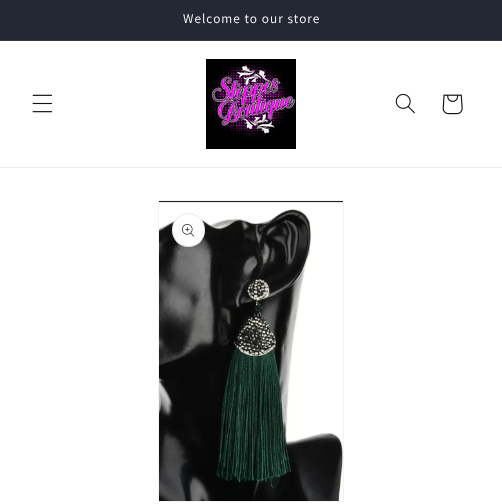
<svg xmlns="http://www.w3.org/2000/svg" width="502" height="504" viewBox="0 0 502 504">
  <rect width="100%" height="100%" fill="rgb(255,255,255)"/>
  <rect x="0" y="0" width="502" height="40" fill="rgb(36,40,51)"/>
  <rect x="0" y="40" width="502" height="1" fill="rgb(54,57,67)"/>
  <text x="183" y="23" font-family="Assistant" font-size="13.25" letter-spacing="1.05" fill="rgb(255,255,255)">Welcome to our store</text>
  <rect x="0" y="167" width="502" height="1" fill="rgb(236,236,236)"/>
  <image x="32" y="94" width="20" height="19" href="pic1.png"/>
  <image x="206" y="59" width="90" height="90" href="pic2.png"/>
  <image x="395" y="93" width="20" height="21" href="pic3.png"/>
  <image x="442" y="94" width="21" height="21" href="pic4.png"/>
  <rect x="158.5" y="200.5" width="185" height="301" fill="none" stroke="rgb(243,243,243)"/>
  <image x="159" y="201" width="184" height="300" href="pic5.png"/>
  <rect x="172" y="213" width="33" height="34" rx="16.5" fill="rgb(255,255,255)"/>
  <rect x="172.5" y="213.5" width="32" height="33" rx="16" fill="none" stroke="rgba(18,18,18,0.1)"/>
  <image x="182" y="224" width="13" height="13" href="pic6.png"/>
</svg>
